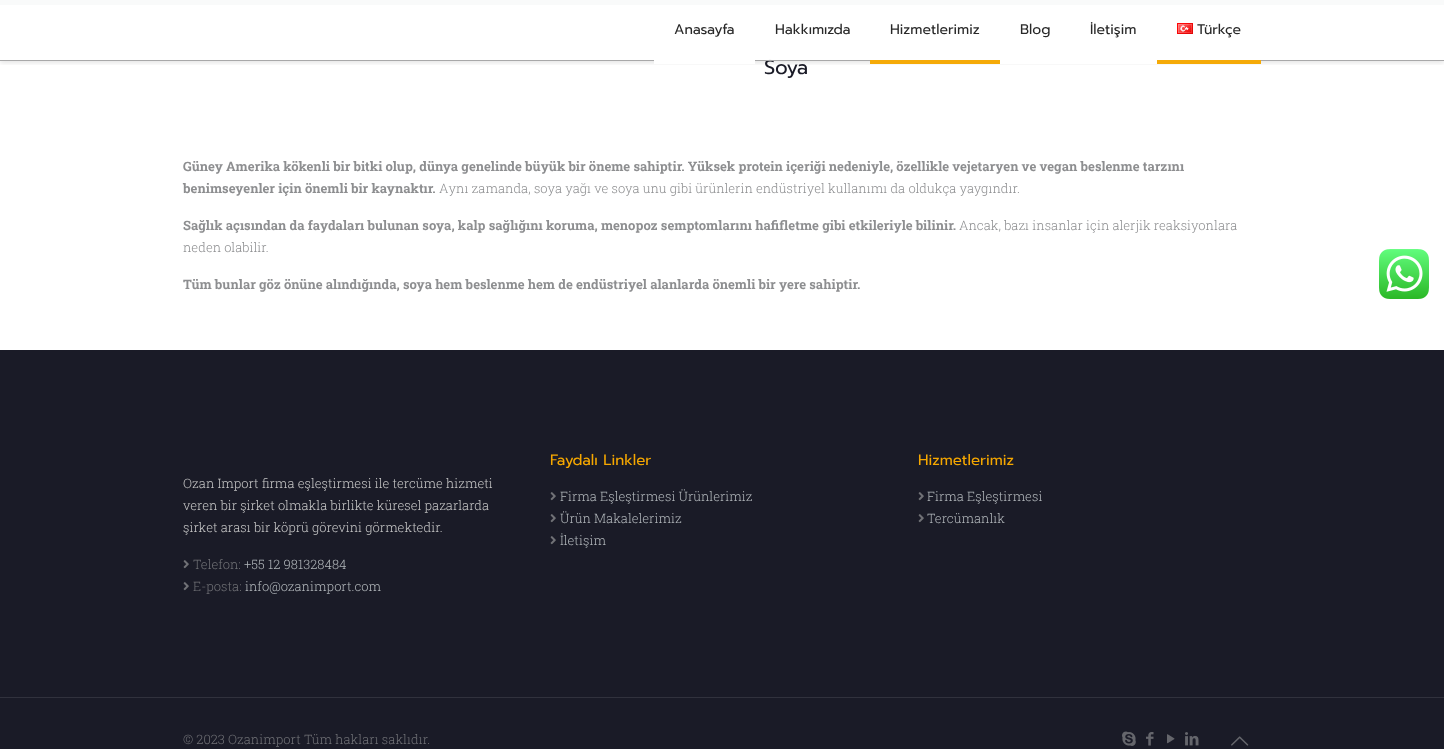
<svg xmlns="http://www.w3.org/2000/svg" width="1444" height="749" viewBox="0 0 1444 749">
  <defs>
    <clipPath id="clip1"><rect x="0" y="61" width="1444" height="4"/></clipPath>
  </defs>
  <rect width="100%" height="100%" fill="rgb(255,255,255)"/>
  <rect x="0" y="0" width="1444" height="5" fill="rgb(227,230,232)"/>
  <g clip-path="url(#clip1)">
    <rect x="0" y="2" width="1444" height="61" fill="rgba(0,0,0,0.1)" filter="blur(2.5px)"/>
  </g>
  <text x="764" y="74" font-family="Prompt" font-size="20" fill="rgb(26,27,39)">Soya</text>
  <rect x="0" y="0" width="1444" height="61" fill="rgba(255,255,255,0.78)"/>
  <rect x="0" y="60" width="1444" height="1" fill="rgba(165,165,166,0.97)"/>
  <text x="674" y="34" font-family="Prompt" font-size="14" fill="rgb(41,41,41)">Anasayfa</text>
  <rect x="654" y="60" width="101" height="4" fill="rgb(255,255,255)"/>
  <g font-family="Prompt" font-size="14" fill="rgb(41,41,41)">
    <text x="775" y="34">Hakkımızda</text>
    <text x="890" y="34">Hizmetlerimiz</text>
  </g>
  <rect x="870" y="60" width="130" height="4" fill="rgb(245,170,8)"/>
  <text x="1020" y="34" font-family="Prompt" font-size="14" fill="rgb(41,41,41)">Blog</text>
  <rect x="1000" y="60" width="157" height="4" fill="rgb(255,255,255)"/>
  <text x="1090" y="34" font-family="Prompt" font-size="14" fill="rgb(41,41,41)">İletişim</text>
  <image x="1177" y="23" width="16" height="11" href="pic1.png"/>
  <text x="1197" y="34" font-family="Prompt" font-size="14" fill="rgb(41,41,41)">Türkçe</text>
  <rect x="1157" y="60" width="104" height="4" fill="rgb(245,170,8)"/>
  <g font-family="Roboto Slab" font-size="13" font-weight="bold" fill="rgb(141,142,144)">
    <text>
      <tspan x="183" y="171">Güney Amerika kökenli bir bitki olup, dünya genelinde büyük bir öneme sahiptir. Yüksek protein içeriği nedeniyle, özellikle vejetaryen ve vegan beslenme tarzını</tspan>
      <tspan x="183" y="193">benimseyenler için önemli bir kaynaktır.</tspan>
    </text>
  </g>
  <text x="439" y="193" font-family="Roboto Slab" font-size="13" font-weight="300" fill="rgb(141,142,144)">Aynı zamanda, soya yağı ve soya unu gibi ürünlerin endüstriyel kullanımı da oldukça yaygındır.</text>
  <text x="183" y="230" font-family="Roboto Slab" font-size="13" font-weight="bold" fill="rgb(141,142,144)">Sağlık açısından da faydaları bulunan soya, kalp sağlığını koruma, menopoz semptomlarını hafifletme gibi etkileriyle bilinir.</text>
  <g font-family="Roboto Slab" font-size="13" font-weight="300" fill="rgb(141,142,144)">
    <text x="959" y="230">Ancak, bazı insanlar için alerjik reaksiyonlara</text>
    <text x="183" y="252">neden olabilir.</text>
  </g>
  <text x="183" y="289" font-family="Roboto Slab" font-size="13" font-weight="bold" fill="rgb(141,142,144)">Tüm bunlar göz önüne alındığında, soya hem beslenme hem de endüstriyel alanlarda önemli bir yere sahiptir.</text>
  <rect x="0" y="350" width="1444" height="399" fill="rgb(26,27,39)"/>
  <g font-family="Roboto Slab" font-size="13" font-weight="300" fill="rgb(198,198,198)">
    <text>
      <tspan x="183" y="488">Ozan Import firma eşleştirmesi ile tercüme hizmeti</tspan>
      <tspan x="183" y="510">veren bir şirket olmakla birlikte küresel pazarlarda</tspan>
      <tspan x="183" y="532">şirket arası bir köprü görevini görmektedir.</tspan>
    </text>
  </g>
  <image x="183" y="560" width="6" height="9" href="pic2.png"/>
  <text x="193" y="569" font-family="Roboto Slab" font-size="13" font-weight="300" fill="rgb(112,113,118)">Telefon:</text>
  <text x="244" y="569" font-family="Roboto Slab" font-size="13" font-weight="300" fill="rgb(177,182,186)">+55 12 981328484</text>
  <image x="183" y="582" width="6" height="9" href="pic2.png"/>
  <text x="193" y="591" font-family="Roboto Slab" font-size="13" font-weight="300" fill="rgb(112,113,118)">E-posta:</text>
  <text x="245" y="591" font-family="Roboto Slab" font-size="13" font-weight="300" fill="rgb(177,182,186)">info@ozanimport.com</text>
  <text x="550" y="465" font-family="Prompt" font-size="15" fill="rgb(245,167,0)">Faydalı Linkler</text>
  <image x="550" y="492" width="6" height="9" href="pic2.png"/>
  <text x="560" y="501" font-family="Roboto Slab" font-size="13" font-weight="300" fill="rgb(177,182,186)">Firma Eşleştirmesi Ürünlerimiz</text>
  <image x="550" y="514" width="6" height="9" href="pic2.png"/>
  <text x="560" y="523" font-family="Roboto Slab" font-size="13" font-weight="300" fill="rgb(177,182,186)">Ürün Makalelerimiz</text>
  <image x="550" y="536" width="6" height="9" href="pic2.png"/>
  <text x="560" y="545" font-family="Roboto Slab" font-size="13" font-weight="300" fill="rgb(177,182,186)">İletişim</text>
  <text x="918" y="465" font-family="Prompt" font-size="15" fill="rgb(245,167,0)">Hizmetlerimiz</text>
  <image x="918" y="492" width="6" height="9" href="pic2.png"/>
  <text x="927" y="501" font-family="Roboto Slab" font-size="13" font-weight="300" fill="rgb(177,182,186)">Firma Eşleştirmesi</text>
  <image x="918" y="514" width="6" height="9" href="pic2.png"/>
  <text x="927" y="523" font-family="Roboto Slab" font-size="13" font-weight="300" fill="rgb(177,182,186)">Tercümanlık</text>
  <rect x="0" y="697" width="1444" height="1" fill="rgb(49,50,61)"/>
  <text x="183" y="744" font-family="Roboto Slab" font-size="13" font-weight="300" fill="rgb(112,113,118)">© 2023 Ozanimport Tüm hakları saklıdır.</text>
  <image x="1122" y="731" width="14" height="15" href="pic3.png"/>
  <image x="1146" y="732" width="8" height="14" href="pic4.png"/>
  <image x="1167" y="734" width="8" height="10" href="pic5.png"/>
  <image x="1185" y="732" width="14" height="14" href="pic6.png"/>
  <image x="1231" y="736" width="18" height="10" href="pic7.png"/>
  <image x="1379" y="249" width="50" height="50" href="pic8.png"/>
</svg>
